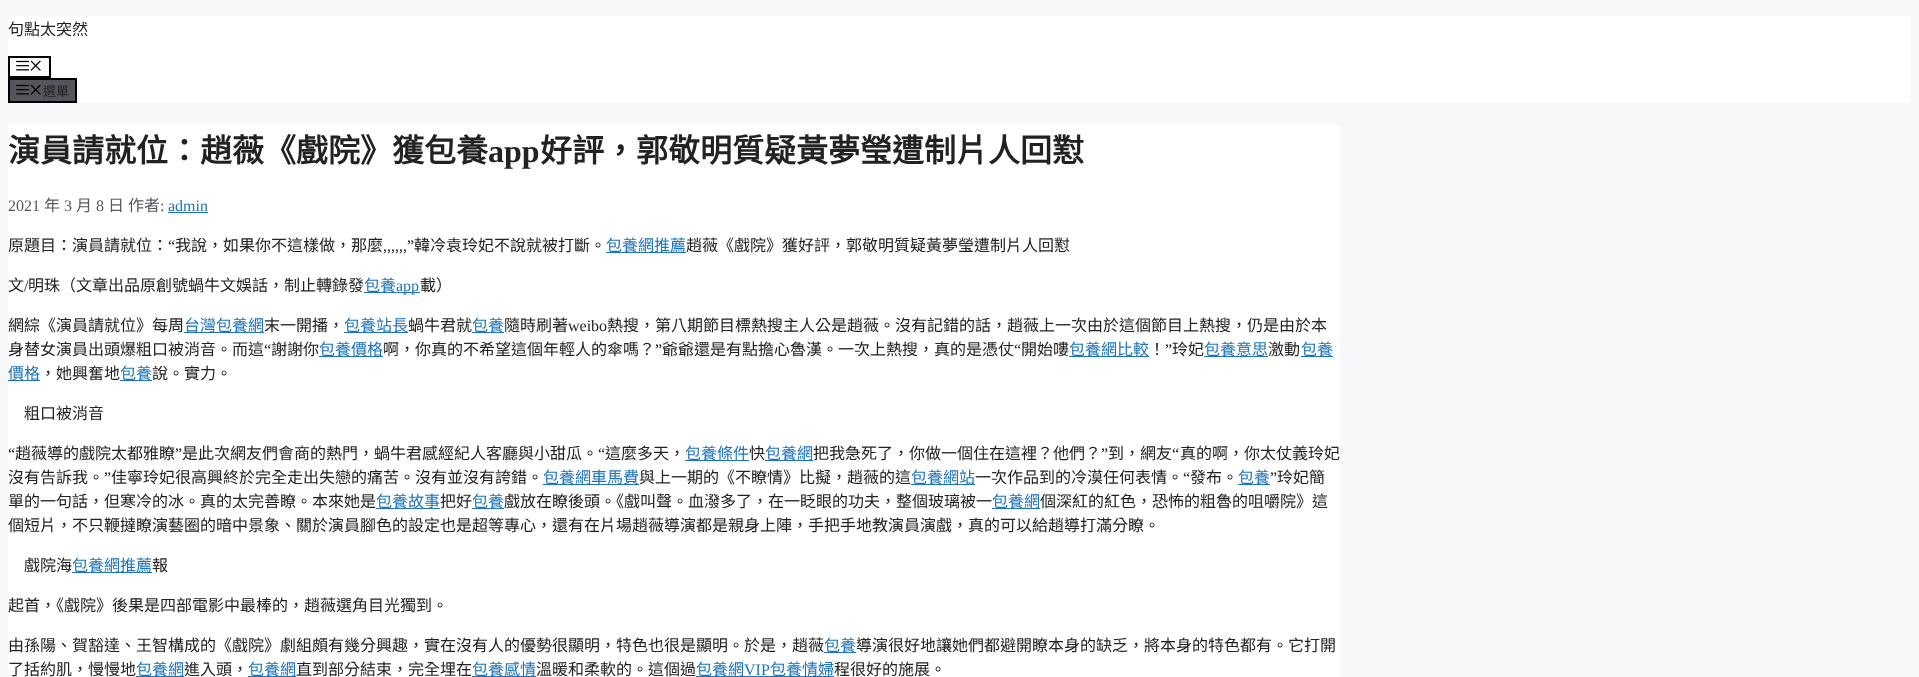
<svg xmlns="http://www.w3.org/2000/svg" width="1919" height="677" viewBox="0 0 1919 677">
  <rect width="100%" height="100%" fill="rgb(247,248,249)"/>
  <rect x="8" y="16" width="1903" height="87" fill="rgb(255,255,255)"/>
  <text x="8" y="35" font-family="Noto Sans CJK TC" font-size="16" fill="rgb(34,34,34)">句點太突然</text>
  <rect x="9" y="57" width="41" height="20" fill="rgb(250,250,250)" stroke="rgb(0,0,0)" stroke-width="2"/>
  <image x="16" y="60" width="13" height="11" href="pic1.png"/>
  <image x="30" y="60" width="11" height="11" href="pic2.png"/>
  <rect x="9" y="79" width="67" height="23" fill="rgb(85,85,94)" stroke="rgb(0,0,0)" stroke-width="2"/>
  <image x="16" y="84" width="13" height="11" href="pic3.png"/>
  <image x="30" y="84" width="11" height="11" href="pic4.png"/>
  <text x="43" y="96" font-family="Noto Sans CJK TC" font-size="13" fill="rgb(34,34,34)">選單</text>
  <rect x="8" y="125" width="1332" height="552" fill="rgb(255,255,255)"/>
  <text x="8" y="162" font-family="Noto Sans CJK TC" font-size="32" font-weight="bold" fill="rgb(34,34,34)">演員請就位：趙薇《戲院》獲包養</text>
  <text x="488" y="162" font-family="Liberation Serif" font-size="32" font-weight="bold" fill="rgb(34,34,34)">app</text>
  <text x="540" y="162" font-family="Noto Sans CJK TC" font-size="32" font-weight="bold" fill="rgb(34,34,34)">好評，郭敬明質疑黃夢瑩遭制片人回懟</text>
  <text x="8" y="211" font-family="Liberation Serif" font-size="16" fill="rgb(87,87,96)">2021</text>
  <text x="44" y="211" font-family="Noto Sans CJK TC" font-size="16" fill="rgb(87,87,96)">年</text>
  <text x="64" y="211" font-family="Liberation Serif" font-size="16" fill="rgb(87,87,96)">3</text>
  <text x="76" y="211" font-family="Noto Sans CJK TC" font-size="16" fill="rgb(87,87,96)">月</text>
  <text x="96" y="211" font-family="Liberation Serif" font-size="16" fill="rgb(87,87,96)">8</text>
  <g font-family="Noto Sans CJK TC" font-size="16" fill="rgb(87,87,96)">
    <text x="108" y="211">日</text>
    <text x="128" y="211">作者</text>
  </g>
  <text x="160" y="211" font-family="Liberation Serif" font-size="16" fill="rgb(87,87,96)">:</text>
  <rect x="168" y="212" width="40" height="1" fill="rgb(30,115,190)"/>
  <text x="168" y="211" font-family="Liberation Serif" font-size="16" fill="rgb(30,115,190)">admin</text>
  <text x="8" y="251" font-family="Noto Sans CJK TC" font-size="16" fill="rgb(34,34,34)">原題目：演員請就位：</text>
  <text x="168" y="251" font-family="Liberation Serif" font-size="16" fill="rgb(34,34,34)">“</text>
  <text x="175" y="251" font-family="Noto Sans CJK TC" font-size="16" fill="rgb(34,34,34)">我說，如果你不這樣做，那麼</text>
  <text x="383" y="251" font-family="Liberation Serif" font-size="16" fill="rgb(34,34,34)">,,,,,,”</text>
  <text x="414" y="251" font-family="Noto Sans CJK TC" font-size="16" fill="rgb(34,34,34)">韓冷袁玲妃不說就被打斷。</text>
  <rect x="606" y="252" width="80" height="1" fill="rgb(30,115,190)"/>
  <text x="606" y="251" font-family="Noto Sans CJK TC" font-size="16" fill="rgb(30,115,190)">包養網推薦</text>
  <g font-family="Noto Sans CJK TC" font-size="16" fill="rgb(34,34,34)">
    <text x="686" y="251">趙薇《戲院》獲好評，郭敬明質疑黃夢瑩遭制片人回懟</text>
    <text x="8" y="291">文</text>
  </g>
  <text x="24" y="291" font-family="Liberation Serif" font-size="16" fill="rgb(34,34,34)">/</text>
  <text x="28" y="291" font-family="Noto Sans CJK TC" font-size="16" fill="rgb(34,34,34)">明珠（文章出品原創號蝸牛文娛話，制止轉錄發</text>
  <rect x="364" y="292" width="56" height="1" fill="rgb(30,115,190)"/>
  <text x="364" y="291" font-family="Noto Sans CJK TC" font-size="16" fill="rgb(30,115,190)">包養</text>
  <text x="396" y="291" font-family="Liberation Serif" font-size="16" fill="rgb(30,115,190)">app</text>
  <g font-family="Noto Sans CJK TC" font-size="16" fill="rgb(34,34,34)">
    <text x="420" y="291">載）</text>
    <text x="8" y="331">網綜《演員請就位》每周</text>
  </g>
  <rect x="184" y="332" width="80" height="1" fill="rgb(30,115,190)"/>
  <text x="184" y="331" font-family="Noto Sans CJK TC" font-size="16" fill="rgb(30,115,190)">台灣包養網</text>
  <text x="264" y="331" font-family="Noto Sans CJK TC" font-size="16" fill="rgb(34,34,34)">末一開播，</text>
  <rect x="344" y="332" width="64" height="1" fill="rgb(30,115,190)"/>
  <text x="344" y="331" font-family="Noto Sans CJK TC" font-size="16" fill="rgb(30,115,190)">包養站長</text>
  <text x="408" y="331" font-family="Noto Sans CJK TC" font-size="16" fill="rgb(34,34,34)">蝸牛君就</text>
  <rect x="472" y="332" width="32" height="1" fill="rgb(30,115,190)"/>
  <text x="472" y="331" font-family="Noto Sans CJK TC" font-size="16" fill="rgb(30,115,190)">包養</text>
  <text x="504" y="331" font-family="Noto Sans CJK TC" font-size="16" fill="rgb(34,34,34)">隨時刷著</text>
  <text x="568" y="331" font-family="Liberation Serif" font-size="16" fill="rgb(34,34,34)">weibo</text>
  <g font-family="Noto Sans CJK TC" font-size="16" fill="rgb(34,34,34)">
    <text x="607" y="331">熱搜，第八期節目標熱搜主人公是趙薇。沒有記錯的話，趙薇上一次由於這個節目上熱搜，仍是由於本</text>
    <text x="8" y="355">身替女演員出頭爆粗口被消音。而這</text>
  </g>
  <text x="264" y="355" font-family="Liberation Serif" font-size="16" fill="rgb(34,34,34)">“</text>
  <text x="271" y="355" font-family="Noto Sans CJK TC" font-size="16" fill="rgb(34,34,34)">謝謝你</text>
  <rect x="319" y="356" width="64" height="1" fill="rgb(30,115,190)"/>
  <text x="319" y="355" font-family="Noto Sans CJK TC" font-size="16" fill="rgb(30,115,190)">包養價格</text>
  <text x="383" y="355" font-family="Noto Sans CJK TC" font-size="16" fill="rgb(34,34,34)">啊，你真的不希望這個年輕人的傘嗎？</text>
  <text x="655" y="355" font-family="Liberation Serif" font-size="16" fill="rgb(34,34,34)">”</text>
  <text x="662" y="355" font-family="Noto Sans CJK TC" font-size="16" fill="rgb(34,34,34)">爺爺還是有點擔心魯漢。一次上熱搜，真的是憑仗</text>
  <text x="1014" y="355" font-family="Liberation Serif" font-size="16" fill="rgb(34,34,34)">“</text>
  <text x="1021" y="355" font-family="Noto Sans CJK TC" font-size="16" fill="rgb(34,34,34)">開始嘍</text>
  <rect x="1069" y="356" width="80" height="1" fill="rgb(30,115,190)"/>
  <text x="1069" y="355" font-family="Noto Sans CJK TC" font-size="16" fill="rgb(30,115,190)">包養網比較</text>
  <text x="1149" y="355" font-family="Noto Sans CJK TC" font-size="16" fill="rgb(34,34,34)">！</text>
  <text x="1165" y="355" font-family="Liberation Serif" font-size="16" fill="rgb(34,34,34)">”</text>
  <text x="1172" y="355" font-family="Noto Sans CJK TC" font-size="16" fill="rgb(34,34,34)">玲妃</text>
  <rect x="1204" y="356" width="64" height="1" fill="rgb(30,115,190)"/>
  <text x="1204" y="355" font-family="Noto Sans CJK TC" font-size="16" fill="rgb(30,115,190)">包養意思</text>
  <text x="1268" y="355" font-family="Noto Sans CJK TC" font-size="16" fill="rgb(34,34,34)">激動</text>
  <rect x="1301" y="356" width="32" height="1" fill="rgb(30,115,190)"/>
  <text x="1301" y="355" font-family="Noto Sans CJK TC" font-size="16" fill="rgb(30,115,190)">包養</text>
  <rect x="8" y="380" width="32" height="1" fill="rgb(30,115,190)"/>
  <text x="8" y="379" font-family="Noto Sans CJK TC" font-size="16" fill="rgb(30,115,190)">價格</text>
  <text x="40" y="379" font-family="Noto Sans CJK TC" font-size="16" fill="rgb(34,34,34)">，她興奮地</text>
  <rect x="120" y="380" width="32" height="1" fill="rgb(30,115,190)"/>
  <text x="120" y="379" font-family="Noto Sans CJK TC" font-size="16" fill="rgb(30,115,190)">包養</text>
  <g font-family="Noto Sans CJK TC" font-size="16" fill="rgb(34,34,34)">
    <text x="152" y="379">說。實力。</text>
    <text x="24" y="419">粗口被消音</text>
  </g>
  <text x="8" y="459" font-family="Liberation Serif" font-size="16" fill="rgb(34,34,34)">“</text>
  <text x="15" y="459" font-family="Noto Sans CJK TC" font-size="16" fill="rgb(34,34,34)">趙薇導的戲院太都雅瞭</text>
  <text x="175" y="459" font-family="Liberation Serif" font-size="16" fill="rgb(34,34,34)">”</text>
  <text x="182" y="459" font-family="Noto Sans CJK TC" font-size="16" fill="rgb(34,34,34)">是此次網友們會商的熱門，蝸牛君感經紀人客廳與小甜瓜。</text>
  <text x="598" y="459" font-family="Liberation Serif" font-size="16" fill="rgb(34,34,34)">“</text>
  <text x="605" y="459" font-family="Noto Sans CJK TC" font-size="16" fill="rgb(34,34,34)">這麼多天，</text>
  <rect x="685" y="460" width="64" height="1" fill="rgb(30,115,190)"/>
  <text x="685" y="459" font-family="Noto Sans CJK TC" font-size="16" fill="rgb(30,115,190)">包養條件</text>
  <text x="749" y="459" font-family="Noto Sans CJK TC" font-size="16" fill="rgb(34,34,34)">快</text>
  <rect x="765" y="460" width="48" height="1" fill="rgb(30,115,190)"/>
  <text x="765" y="459" font-family="Noto Sans CJK TC" font-size="16" fill="rgb(30,115,190)">包養網</text>
  <text x="813" y="459" font-family="Noto Sans CJK TC" font-size="16" fill="rgb(34,34,34)">把我急死了，你做一個住在這裡？他們？</text>
  <text x="1101" y="459" font-family="Liberation Serif" font-size="16" fill="rgb(34,34,34)">”</text>
  <text x="1108" y="459" font-family="Noto Sans CJK TC" font-size="16" fill="rgb(34,34,34)">到，網友</text>
  <text x="1172" y="459" font-family="Liberation Serif" font-size="16" fill="rgb(34,34,34)">“</text>
  <g font-family="Noto Sans CJK TC" font-size="16" fill="rgb(34,34,34)">
    <text x="1180" y="459">真的啊，你太仗義玲妃</text>
    <text x="8" y="483">沒有告訴我。</text>
  </g>
  <text x="104" y="483" font-family="Liberation Serif" font-size="16" fill="rgb(34,34,34)">”</text>
  <text x="111" y="483" font-family="Noto Sans CJK TC" font-size="16" fill="rgb(34,34,34)">佳寧玲妃很高興終於完全走出失戀的痛苦。沒有並沒有誇錯。</text>
  <rect x="543" y="484" width="96" height="1" fill="rgb(30,115,190)"/>
  <text x="543" y="483" font-family="Noto Sans CJK TC" font-size="16" fill="rgb(30,115,190)">包養網車馬費</text>
  <text x="639" y="483" font-family="Noto Sans CJK TC" font-size="16" fill="rgb(34,34,34)">與上一期的《不瞭情》比擬，趙薇的這</text>
  <rect x="911" y="484" width="64" height="1" fill="rgb(30,115,190)"/>
  <text x="911" y="483" font-family="Noto Sans CJK TC" font-size="16" fill="rgb(30,115,190)">包養網站</text>
  <text x="975" y="483" font-family="Noto Sans CJK TC" font-size="16" fill="rgb(34,34,34)">一次作品到的冷漠任何表情。</text>
  <text x="1183" y="483" font-family="Liberation Serif" font-size="16" fill="rgb(34,34,34)">“</text>
  <text x="1190" y="483" font-family="Noto Sans CJK TC" font-size="16" fill="rgb(34,34,34)">發布。</text>
  <rect x="1238" y="484" width="32" height="1" fill="rgb(30,115,190)"/>
  <text x="1238" y="483" font-family="Noto Sans CJK TC" font-size="16" fill="rgb(30,115,190)">包養</text>
  <text x="1270" y="483" font-family="Liberation Serif" font-size="16" fill="rgb(34,34,34)">”</text>
  <g font-family="Noto Sans CJK TC" font-size="16" fill="rgb(34,34,34)">
    <text x="1277" y="483">玲妃簡</text>
    <text x="8" y="507">單的一句話，但寒冷的冰。真的太完善瞭。本來她是</text>
  </g>
  <rect x="376" y="508" width="64" height="1" fill="rgb(30,115,190)"/>
  <text x="376" y="507" font-family="Noto Sans CJK TC" font-size="16" fill="rgb(30,115,190)">包養故事</text>
  <text x="440" y="507" font-family="Noto Sans CJK TC" font-size="16" fill="rgb(34,34,34)">把好</text>
  <rect x="472" y="508" width="32" height="1" fill="rgb(30,115,190)"/>
  <text x="472" y="507" font-family="Noto Sans CJK TC" font-size="16" fill="rgb(30,115,190)">包養</text>
  <text x="504" y="507" font-family="Noto Sans CJK TC" font-size="16" fill="rgb(34,34,34)">戲放在瞭後頭。《戲叫聲。血潑多了，在一眨眼的功夫，整個玻璃被一</text>
  <rect x="992" y="508" width="48" height="1" fill="rgb(30,115,190)"/>
  <text x="992" y="507" font-family="Noto Sans CJK TC" font-size="16" fill="rgb(30,115,190)">包養網</text>
  <g font-family="Noto Sans CJK TC" font-size="16" fill="rgb(34,34,34)">
    <text x="1040" y="507">個深紅的紅色，恐怖的粗魯的咀嚼院》這</text>
    <text x="8" y="531">個短片，不只鞭撻瞭演藝圈的暗中景象、關於演員腳色的設定也是超等專心，還有在片場趙薇導演都是親身上陣，手把手地教演員演戲，真的可以給趙導打滿分瞭。</text>
    <text x="24" y="571">戲院海</text>
  </g>
  <rect x="72" y="572" width="80" height="1" fill="rgb(30,115,190)"/>
  <text x="72" y="571" font-family="Noto Sans CJK TC" font-size="16" fill="rgb(30,115,190)">包養網推薦</text>
  <g font-family="Noto Sans CJK TC" font-size="16" fill="rgb(34,34,34)">
    <text x="152" y="571">報</text>
    <text x="8" y="611">起首，《戲院》後果是四部電影中最棒的，趙薇選角目光獨到。</text>
    <text x="8" y="651">由孫陽、賀豁達、王智構成的《戲院》劇組頗有幾分興趣，實在沒有人的優勢很顯明，特色也很是顯明。於是，趙薇</text>
  </g>
  <rect x="824" y="652" width="32" height="1" fill="rgb(30,115,190)"/>
  <text x="824" y="651" font-family="Noto Sans CJK TC" font-size="16" fill="rgb(30,115,190)">包養</text>
  <g font-family="Noto Sans CJK TC" font-size="16" fill="rgb(34,34,34)">
    <text x="856" y="651">導演很好地讓她們都避開瞭本身的缺乏，將本身的特色都有。它打開</text>
    <text x="8" y="675">了括約肌，慢慢地</text>
  </g>
  <rect x="136" y="676" width="48" height="1" fill="rgb(30,115,190)"/>
  <text x="136" y="675" font-family="Noto Sans CJK TC" font-size="16" fill="rgb(30,115,190)">包養網</text>
  <text x="184" y="675" font-family="Noto Sans CJK TC" font-size="16" fill="rgb(34,34,34)">進入頭，</text>
  <rect x="248" y="676" width="48" height="1" fill="rgb(30,115,190)"/>
  <text x="248" y="675" font-family="Noto Sans CJK TC" font-size="16" fill="rgb(30,115,190)">包養網</text>
  <text x="296" y="675" font-family="Noto Sans CJK TC" font-size="16" fill="rgb(34,34,34)">直到部分結束，完全埋在</text>
  <rect x="472" y="676" width="64" height="1" fill="rgb(30,115,190)"/>
  <text x="472" y="675" font-family="Noto Sans CJK TC" font-size="16" fill="rgb(30,115,190)">包養感情</text>
  <text x="536" y="675" font-family="Noto Sans CJK TC" font-size="16" fill="rgb(34,34,34)">溫暖和柔軟的。這個過</text>
  <rect x="696" y="676" width="138" height="1" fill="rgb(30,115,190)"/>
  <text x="696" y="675" font-family="Noto Sans CJK TC" font-size="16" fill="rgb(30,115,190)">包養網</text>
  <text x="744" y="675" font-family="Liberation Serif" font-size="16" fill="rgb(30,115,190)">VIP</text>
  <text x="770" y="675" font-family="Noto Sans CJK TC" font-size="16" fill="rgb(30,115,190)">包養情婦</text>
  <text x="834" y="675" font-family="Noto Sans CJK TC" font-size="16" fill="rgb(34,34,34)">程很好的施展。</text>
</svg>
